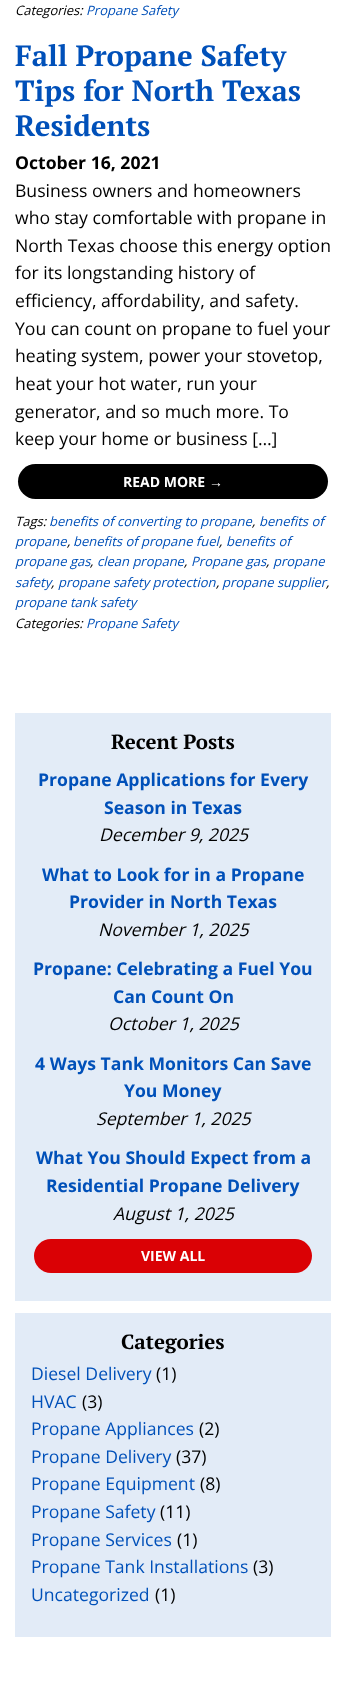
<svg xmlns="http://www.w3.org/2000/svg" width="346" height="1698" viewBox="0 0 346 1698">
  <rect width="100%" height="100%" fill="rgb(255,255,255)"/>
  <text x="15" y="15" font-family="Open Sans" font-size="13" font-style="italic" fill="rgb(0,0,0)">Categories:</text>
  <text x="86" y="15" font-family="Open Sans" font-size="13" font-style="italic" fill="rgb(0,80,185)">Propane Safety</text>
  <g font-family="PT Serif" font-size="29.25" font-weight="bold" fill="rgb(0,80,185)">
    <text>
      <tspan x="15" y="66">Fall Propane Safety</tspan>
      <tspan x="15" y="101">Tips for North Texas</tspan>
      <tspan x="15" y="136">Residents</tspan>
    </text>
  </g>
  <text x="15" y="169" font-family="Open Sans" font-size="17.6" font-weight="bold" fill="rgb(0,0,0)">October 16, 2021</text>
  <g font-family="Open Sans" font-size="17.6" fill="rgb(0,0,0)">
    <text>
      <tspan x="15" y="197">Business owners and homeowners</tspan>
      <tspan x="15" y="224">who stay comfortable with propane in</tspan>
      <tspan x="15" y="252">North Texas choose this energy option</tspan>
      <tspan x="15" y="279">for its longstanding history of</tspan>
      <tspan x="15" y="307">efficiency, affordability, and safety.</tspan>
      <tspan x="15" y="335">You can count on propane to fuel your</tspan>
      <tspan x="15" y="362">heating system, power your stovetop,</tspan>
      <tspan x="15" y="390">heat your hot water, run your</tspan>
      <tspan x="15" y="418">generator, and so much more. To</tspan>
      <tspan x="15" y="445">keep your home or business […]</tspan>
    </text>
  </g>
  <rect x="18" y="464" width="310" height="35" rx="17.5" fill="rgb(0,0,0)"/>
  <text x="123" y="487" font-family="Open Sans" font-size="14" font-weight="bold" fill="rgb(255,255,255)">READ MORE</text>
  <text x="209" y="487" font-family="Liberation Sans" font-size="14" font-weight="bold" fill="rgb(255,255,255)">→</text>
  <text x="15" y="526" font-family="Open Sans" font-size="13" font-style="italic" fill="rgb(0,0,0)">Tags:</text>
  <text x="49" y="526" font-family="Open Sans" font-size="13" font-style="italic" fill="rgb(0,80,185)">benefits of converting to propane</text>
  <text x="252" y="526" font-family="Open Sans" font-size="13" font-style="italic" fill="rgb(0,0,0)">,</text>
  <g font-family="Open Sans" font-size="13" font-style="italic" fill="rgb(0,80,185)">
    <text x="259" y="526">benefits of</text>
    <text x="15" y="546">propane</text>
  </g>
  <text x="67" y="546" font-family="Open Sans" font-size="13" font-style="italic" fill="rgb(0,0,0)">,</text>
  <g font-family="Open Sans" font-size="13" font-style="italic" fill="rgb(0,80,185)">
    <text x="73" y="546">benefits of propane fuel</text>
    <text x="226" y="546">benefits of</text>
  </g>
  <text x="219" y="546" font-family="Open Sans" font-size="13" font-style="italic" fill="rgb(0,0,0)">,</text>
  <g font-family="Open Sans" font-size="13" font-style="italic" fill="rgb(0,80,185)">
    <text x="15" y="566">propane gas</text>
    <text x="97" y="566">clean propane</text>
    <text x="191" y="566">Propane gas</text>
    <text x="273" y="566">propane</text>
  </g>
  <g font-family="Open Sans" font-size="13" font-style="italic" fill="rgb(0,0,0)">
    <text x="90" y="566">,</text>
    <text x="184" y="566">,</text>
    <text x="266" y="566">,</text>
  </g>
  <g font-family="Open Sans" font-size="13" font-style="italic" fill="rgb(0,80,185)">
    <text x="15" y="587">safety</text>
    <text x="58" y="587">propane safety protection</text>
    <text x="222" y="587">propane supplier</text>
  </g>
  <g font-family="Open Sans" font-size="13" font-style="italic" fill="rgb(0,0,0)">
    <text x="51" y="587">,</text>
    <text x="216" y="587">,</text>
    <text x="326" y="587">,</text>
  </g>
  <text x="15" y="607" font-family="Open Sans" font-size="13" font-style="italic" fill="rgb(0,80,185)">propane tank safety</text>
  <text x="15" y="628" font-family="Open Sans" font-size="13" font-style="italic" fill="rgb(0,0,0)">Categories:</text>
  <text x="86" y="628" font-family="Open Sans" font-size="13" font-style="italic" fill="rgb(0,80,185)">Propane Safety</text>
  <rect x="15" y="713" width="316" height="588" fill="rgb(227,236,247)"/>
  <text x="111" y="749" font-family="PT Serif" font-size="20.5" font-weight="bold" fill="rgb(0,0,0)">Recent Posts</text>
  <g font-family="Open Sans" font-size="17.6" font-weight="bold" fill="rgb(0,80,185)">
    <text x="38" y="786">Propane Applications for Every</text>
    <text x="104" y="814">Season in Texas</text>
  </g>
  <text x="99" y="841" font-family="Open Sans" font-size="17.6" font-style="italic" fill="rgb(0,0,0)">December 9, 2025</text>
  <g font-family="Open Sans" font-size="17.6" font-weight="bold" fill="rgb(0,80,185)">
    <text x="42" y="881">What to Look for in a Propane</text>
    <text x="69" y="908">Provider in North Texas</text>
  </g>
  <text x="98" y="936" font-family="Open Sans" font-size="17.6" font-style="italic" fill="rgb(0,0,0)">November 1, 2025</text>
  <g font-family="Open Sans" font-size="17.6" font-weight="bold" fill="rgb(0,80,185)">
    <text x="33" y="975">Propane: Celebrating a Fuel You</text>
    <text x="113" y="1003">Can Count On</text>
  </g>
  <text x="108" y="1030" font-family="Open Sans" font-size="17.6" font-style="italic" fill="rgb(0,0,0)">October 1, 2025</text>
  <g font-family="Open Sans" font-size="17.6" font-weight="bold" fill="rgb(0,80,185)">
    <text x="35" y="1070">4 Ways Tank Monitors Can Save</text>
    <text x="124" y="1097">You Money</text>
  </g>
  <text x="96" y="1125" font-family="Open Sans" font-size="17.6" font-style="italic" fill="rgb(0,0,0)">September 1, 2025</text>
  <g font-family="Open Sans" font-size="17.6" font-weight="bold" fill="rgb(0,80,185)">
    <text x="36" y="1164">What You Should Expect from a</text>
    <text x="46" y="1192">Residential Propane Delivery</text>
  </g>
  <text x="113" y="1220" font-family="Open Sans" font-size="17.6" font-style="italic" fill="rgb(0,0,0)">August 1, 2025</text>
  <rect x="34" y="1239" width="278" height="34" rx="17" fill="rgb(218,1,5)"/>
  <text x="141" y="1261" font-family="Open Sans" font-size="14" font-weight="bold" fill="rgb(255,255,255)">VIEW ALL</text>
  <rect x="15" y="1313" width="316" height="324" fill="rgb(226,235,247)"/>
  <text x="121" y="1349" font-family="PT Serif" font-size="20.5" font-weight="bold" fill="rgb(0,0,0)">Categories</text>
  <text x="31" y="1380" font-family="Open Sans" font-size="17.6" fill="rgb(0,80,185)">Diesel Delivery</text>
  <text x="156" y="1380" font-family="Open Sans" font-size="17.6" fill="rgb(0,0,0)">(1)</text>
  <text x="31" y="1408" font-family="Open Sans" font-size="17.6" fill="rgb(0,80,185)">HVAC</text>
  <text x="82" y="1408" font-family="Open Sans" font-size="17.6" fill="rgb(0,0,0)">(3)</text>
  <text x="31" y="1435" font-family="Open Sans" font-size="17.6" fill="rgb(0,80,185)">Propane Appliances</text>
  <text x="199" y="1435" font-family="Open Sans" font-size="17.6" fill="rgb(0,0,0)">(2)</text>
  <text x="31" y="1463" font-family="Open Sans" font-size="17.6" fill="rgb(0,80,185)">Propane Delivery</text>
  <text x="176" y="1463" font-family="Open Sans" font-size="17.6" fill="rgb(0,0,0)">(37)</text>
  <text x="31" y="1490" font-family="Open Sans" font-size="17.6" fill="rgb(0,80,185)">Propane Equipment</text>
  <text x="200" y="1490" font-family="Open Sans" font-size="17.6" fill="rgb(0,0,0)">(8)</text>
  <text x="31" y="1518" font-family="Open Sans" font-size="17.6" fill="rgb(0,80,185)">Propane Safety</text>
  <text x="160" y="1518" font-family="Open Sans" font-size="17.6" fill="rgb(0,0,0)">(11)</text>
  <text x="31" y="1546" font-family="Open Sans" font-size="17.6" fill="rgb(0,80,185)">Propane Services</text>
  <text x="177" y="1546" font-family="Open Sans" font-size="17.6" fill="rgb(0,0,0)">(1)</text>
  <text x="31" y="1573" font-family="Open Sans" font-size="17.6" fill="rgb(0,80,185)">Propane Tank Installations</text>
  <text x="253" y="1573" font-family="Open Sans" font-size="17.6" fill="rgb(0,0,0)">(3)</text>
  <text x="31" y="1601" font-family="Open Sans" font-size="17.6" fill="rgb(0,80,185)">Uncategorized</text>
  <text x="155" y="1601" font-family="Open Sans" font-size="17.6" fill="rgb(0,0,0)">(1)</text>
</svg>
